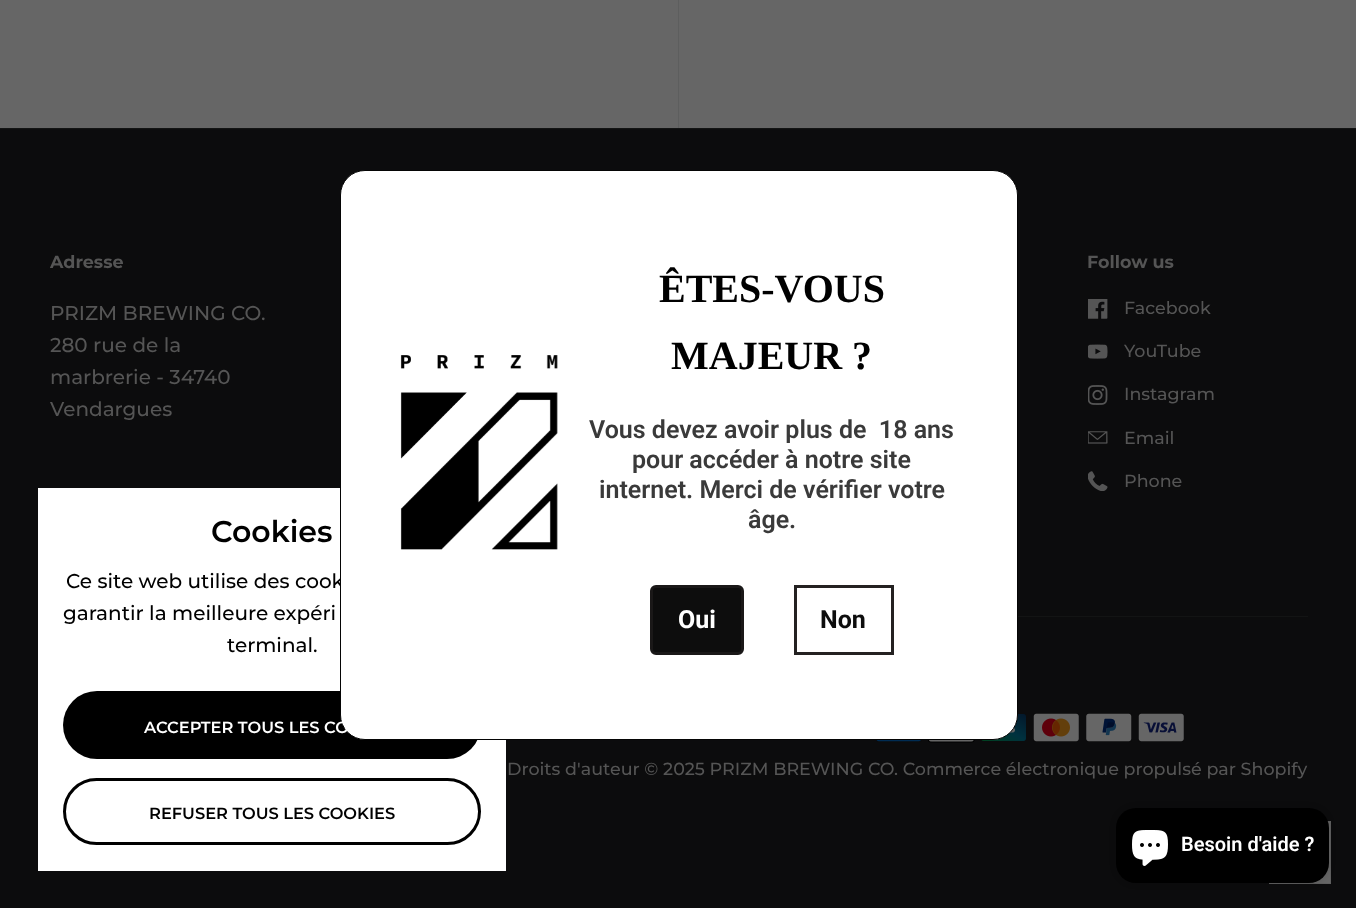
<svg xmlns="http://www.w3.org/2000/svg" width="1356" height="908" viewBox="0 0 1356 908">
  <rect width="100%" height="100%" fill="rgb(102,102,102)"/>
  <rect x="678" y="0" width="1" height="128" fill="rgb(93,94,94)"/>
  <rect x="0" y="129" width="1356" height="779" fill="rgb(12,12,13)"/>
  <rect x="0" y="128" width="1356" height="1" fill="rgb(19,20,20)"/>
  <text x="50" y="268" font-family="Montserrat" font-size="17.5" font-weight="bold" fill="rgb(85,85,85)">Adresse</text>
  <g font-family="Montserrat" font-size="20" font-weight="500" fill="rgb(85,85,85)">
    <text>
      <tspan x="50" y="320">PRIZM BREWING CO.</tspan>
      <tspan x="50" y="352">280 rue de la</tspan>
      <tspan x="50" y="384">marbrerie - 34740</tspan>
      <tspan x="50" y="416">Vendargues</tspan>
    </text>
  </g>
  <text x="1087" y="268" font-family="Montserrat" font-size="17.5" font-weight="bold" fill="rgb(85,85,85)">Follow us</text>
  <image x="1088" y="299" width="20" height="20" href="pic1.png"/>
  <text x="1124" y="314" font-family="Montserrat" font-size="17.5" font-weight="500" fill="rgb(85,85,85)">Facebook</text>
  <image x="1088" y="344" width="20" height="15" href="pic2.png"/>
  <text x="1124" y="357" font-family="Montserrat" font-size="17.5" font-weight="500" fill="rgb(85,85,85)">YouTube</text>
  <image x="1088" y="385" width="20" height="20" href="pic3.png"/>
  <text x="1124" y="400" font-family="Montserrat" font-size="17.5" font-weight="500" fill="rgb(85,85,85)">Instagram</text>
  <image x="1088" y="431" width="20" height="13" href="pic4.png"/>
  <text x="1124" y="444" font-family="Montserrat" font-size="17.5" font-weight="500" fill="rgb(85,85,85)">Email</text>
  <image x="1088" y="471" width="20" height="20" href="pic5.png"/>
  <text x="1124" y="487" font-family="Montserrat" font-size="17.5" font-weight="500" fill="rgb(85,85,85)">Phone</text>
  <rect x="1018" y="616" width="290" height="1" fill="rgb(19,20,20)"/>
  <image x="876" y="740" width="46" height="2" href="pic6.png"/>
  <image x="928" y="740" width="47" height="3" href="pic7.png"/>
  <image x="981" y="714" width="45" height="27" href="pic8.png"/>
  <image x="1033" y="713" width="46" height="29" href="pic9.png"/>
  <image x="1086" y="713" width="46" height="29" href="pic10.png"/>
  <image x="1138" y="713" width="46" height="29" href="pic11.png"/>
  <g font-family="Montserrat" font-size="17.5" font-weight="500" fill="rgb(85,85,85)">
    <text x="507" y="775">Droits d'auteur © 2025 PRIZM BREWING CO</text>
    <text x="894" y="775">. Commerce électronique propulsé par Shopify</text>
  </g>
  <rect x="38" y="488" width="468" height="383" fill="rgb(255,255,255)"/>
  <text x="66" y="588" font-family="Montserrat" font-size="20" font-weight="500" fill="rgb(0,0,0)">Ce site web utilise des cook</text>
  <rect x="63" y="691" width="418" height="68" rx="34" fill="rgb(0,0,0)"/>
  <rect x="340.5" y="170.5" width="677" height="569" rx="24.5" fill="rgb(255,255,255)" stroke="rgb(5,5,5)"/>
  <image x="400" y="355" width="158" height="195" href="pic12.png"/>
  <g font-family="Liberation Serif" font-size="40" font-weight="bold" fill="rgb(0,0,0)">
    <text x="659" y="302">ÊTES-VOUS</text>
    <text x="671" y="369">MAJEUR ?</text>
  </g>
  <g font-family="Roboto" font-size="25" font-weight="600" fill="rgb(58,58,58)">
    <text x="589" y="438" xml:space="preserve">Vous devez avoir plus de  18 ans</text>
    <text x="632" y="468">pour accéder à notre site</text>
    <text x="599" y="498">internet. Merci de vérifier votre</text>
    <text x="748" y="528">âge.</text>
  </g>
  <rect x="651.5" y="586.5" width="91" height="67" rx="4.5" fill="rgb(13,13,13)" stroke="rgb(26,24,24)" stroke-width="3"/>
  <text x="678" y="628" font-family="Roboto" font-size="25" font-weight="bold" fill="rgb(255,255,255)">Oui</text>
  <rect x="795.5" y="586.5" width="97" height="67" fill="none" stroke="rgb(36,33,33)" stroke-width="3"/>
  <text x="820" y="628" font-family="Roboto" font-size="25" font-weight="bold" fill="rgb(13,13,13)">Non</text>
  <text x="211" y="542" font-family="Montserrat" font-size="30" font-weight="600" fill="rgb(0,0,0)">Cookies</text>
  <g font-family="Montserrat" font-size="20" font-weight="500" fill="rgb(0,0,0)">
    <text x="63" y="620">garantir la meilleure expéri</text>
    <text x="227" y="652">terminal.</text>
  </g>
  <text x="144" y="733" font-family="Montserrat" font-size="16.25" font-weight="600" fill="rgb(255,255,255)">ACCEPTER TOUS LES CO</text>
  <rect x="64.5" y="779.5" width="415" height="64" rx="32" fill="none" stroke="rgb(0,0,0)" stroke-width="3"/>
  <text x="149" y="819" font-family="Montserrat" font-size="16.25" font-weight="600" fill="rgb(0,0,0)">REFUSER TOUS LES COOKIES</text>
  <rect x="1309" y="822" width="21" height="61" fill="rgb(102,102,102)"/>
  <rect x="1269.5" y="821.5" width="61" height="62" fill="none" stroke="rgb(95,95,95)"/>
  <rect x="1116" y="808" width="213" height="75" rx="20" fill="rgba(0,0,0,0.15)" filter="blur(3px)"/>
  <rect x="1116" y="808" width="213" height="75" rx="20" fill="rgb(0,0,0)"/>
  <image x="1132" y="830" width="36" height="36" href="pic13.png"/>
  <text x="1181" y="851" font-family="Roboto" font-size="20" font-weight="600" fill="rgb(255,255,255)">Besoin d'aide ?</text>
</svg>
